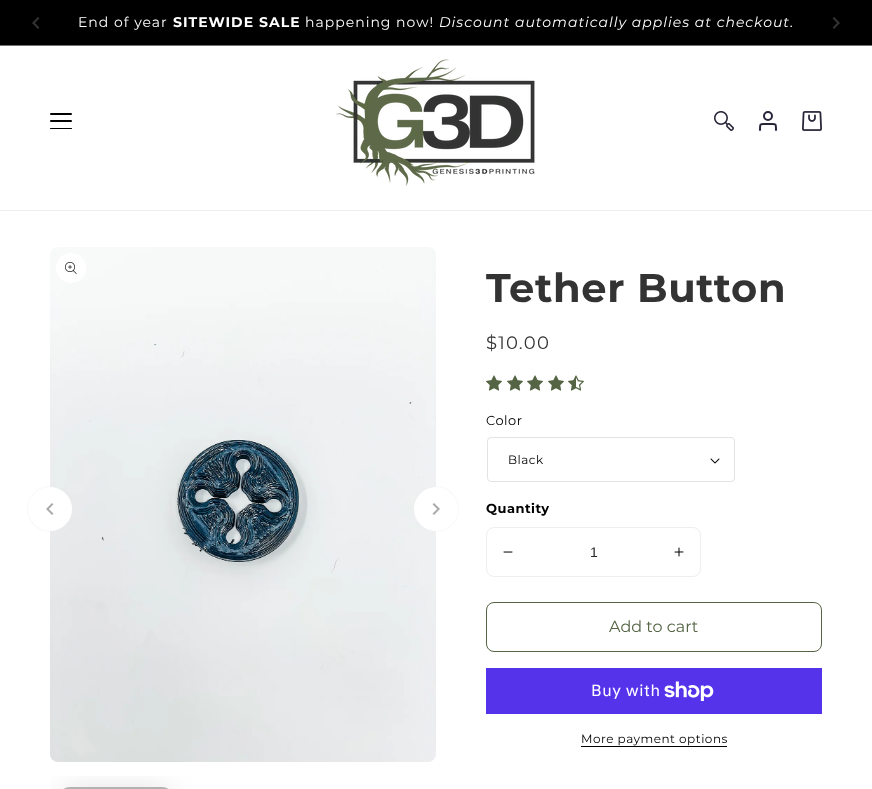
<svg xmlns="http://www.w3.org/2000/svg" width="872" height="789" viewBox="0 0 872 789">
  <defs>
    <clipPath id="clip1"><rect x="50" y="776" width="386" height="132"/></clipPath>
  </defs>
  <rect width="100%" height="100%" fill="rgb(255,255,255)"/>
  <rect x="0" y="0" width="872" height="45" fill="rgb(0,0,0)"/>
  <rect x="0" y="45" width="872" height="1" fill="rgb(114,114,114)"/>
  <image x="32" y="17" width="8" height="12" href="pic1.png"/>
  <text x="78" y="27" font-family="Montserrat" font-size="14" font-weight="100" letter-spacing="1" fill="rgb(255,255,255)">End of year</text>
  <text x="173" y="27" font-family="Montserrat" font-size="14" font-weight="bold" letter-spacing="1" fill="rgb(255,255,255)">SITEWIDE SALE</text>
  <text x="305" y="27" font-family="Montserrat" font-size="14" font-weight="100" letter-spacing="1" fill="rgb(255,255,255)">happening now!</text>
  <text x="439" y="27" font-family="Montserrat" font-size="14" font-style="italic" letter-spacing="1" fill="rgb(255,255,255)">Discount automatically applies at checkout.</text>
  <image x="832" y="17" width="8" height="12" href="pic2.png"/>
  <rect x="0" y="210" width="872" height="1" fill="rgb(238,238,239)"/>
  <rect x="50" y="113" width="22" height="2" rx="1" fill="rgb(0,0,0)"/>
  <rect x="50" y="120" width="22" height="2" rx="1" fill="rgb(0,0,0)"/>
  <rect x="50" y="128" width="22" height="1" rx="0.5" fill="rgb(0,0,0)"/>
  <image x="336" y="59" width="199" height="127" href="pic3.png"/>
  <image x="714" y="111" width="20" height="20" href="pic4.png"/>
  <circle cx="768" cy="116" r="4" fill="none" stroke="rgb(39,37,55)" stroke-width="2"/>
  <path d="M760 130C760 122.5 760 124 768 124C776 124 776 122.5 776 130" fill="none" stroke="rgb(39,37,55)" stroke-width="2" stroke-linecap="round" stroke-linejoin="round"/>
  <image x="802" y="111" width="20" height="20" href="pic5.png"/>
  <image x="50" y="247" width="386" height="515" href="pic6.png"/>
  <circle cx="71" cy="268" r="15" fill="rgb(255,255,255)"/>
  <image x="65" y="262" width="12" height="12" href="pic7.png"/>
  <rect x="28" y="487" width="44" height="44" rx="22" fill="rgb(238,238,238)" filter="blur(1px)"/>
  <circle cx="50" cy="509" r="22" fill="rgb(255,255,255)"/>
  <image x="46" y="503" width="8" height="12" href="pic8.png"/>
  <rect x="414" y="487" width="44" height="44" rx="22" fill="rgb(238,238,238)" filter="blur(1px)"/>
  <circle cx="436" cy="509" r="22" fill="rgb(255,255,255)"/>
  <image x="432" y="503" width="8" height="12" href="pic9.png"/>
  <g clip-path="url(#clip1)">
    <rect x="61" y="787" width="110" height="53" rx="9" fill="rgba(0,0,0,0.1)" filter="blur(14px)"/>
  </g>
  <rect x="62" y="788" width="108" height="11" rx="8" fill="none" stroke="rgb(178,178,178)" stroke-width="2"/>
  <text x="486" y="302" font-family="Montserrat" font-size="40" font-weight="bold" letter-spacing="0.6" fill="rgb(51,51,51)">Tether Button</text>
  <text x="486" y="349" font-family="Montserrat" font-size="18" font-weight="100" letter-spacing="1.25" fill="rgb(51,51,51)">$10.00</text>
  <image x="486" y="375" width="16" height="16" href="pic10.png"/>
  <image x="507" y="375" width="16" height="16" href="pic10.png"/>
  <image x="527" y="375" width="16" height="16" href="pic10.png"/>
  <image x="548" y="375" width="16" height="16" href="pic10.png"/>
  <image x="568" y="375" width="16" height="16" href="pic11.png"/>
  <text x="486" y="425" font-family="Montserrat" font-size="13" font-weight="100" letter-spacing="0.5" fill="rgb(0,0,0)">Color</text>
  <rect x="487.5" y="437.5" width="247" height="44" rx="3.5" fill="none" stroke="rgb(227,227,227)"/>
  <text x="508" y="464" font-family="Montserrat" font-size="12" font-weight="100" letter-spacing="0.5" fill="rgb(0,0,0)">Black</text>
  <image x="710" y="458" width="10" height="6" href="pic12.png"/>
  <text x="486" y="513" font-family="Montserrat" font-size="13" font-weight="bold" letter-spacing="0.5" fill="rgb(0,0,0)">Quantity</text>
  <rect x="486.5" y="527.5" width="214" height="49" rx="7.5" fill="none" stroke="rgb(238,238,238)"/>
  <image x="503" y="551" width="10" height="2" href="pic13.png"/>
  <text x="590" y="557" font-family="Liberation Sans" font-size="14" fill="rgb(38,38,38)">1</text>
  <image x="674" y="547" width="10" height="10" href="pic14.png"/>
  <rect x="486.5" y="602.5" width="335" height="49" rx="7.5" fill="none" stroke="rgb(84,100,68)"/>
  <text x="609" y="632" font-family="Montserrat" font-size="16" font-weight="100" fill="rgb(84,100,68)">Add to cart</text>
  <rect x="486" y="668" width="336" height="46" fill="rgb(84,51,235)"/>
  <text x="591" y="696" font-family="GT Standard" font-size="16" letter-spacing="0.6" fill="rgb(255,255,255)">Buy with</text>
  <image x="664" y="681" width="50" height="20" href="pic15.png"/>
  <text x="581" y="743" font-family="Montserrat" font-size="12" font-weight="100" letter-spacing="0.5" fill="rgb(0,0,0)">More payment options</text>
  <rect x="581" y="746" width="146" height="1" fill="rgb(0,0,0)"/>
</svg>
